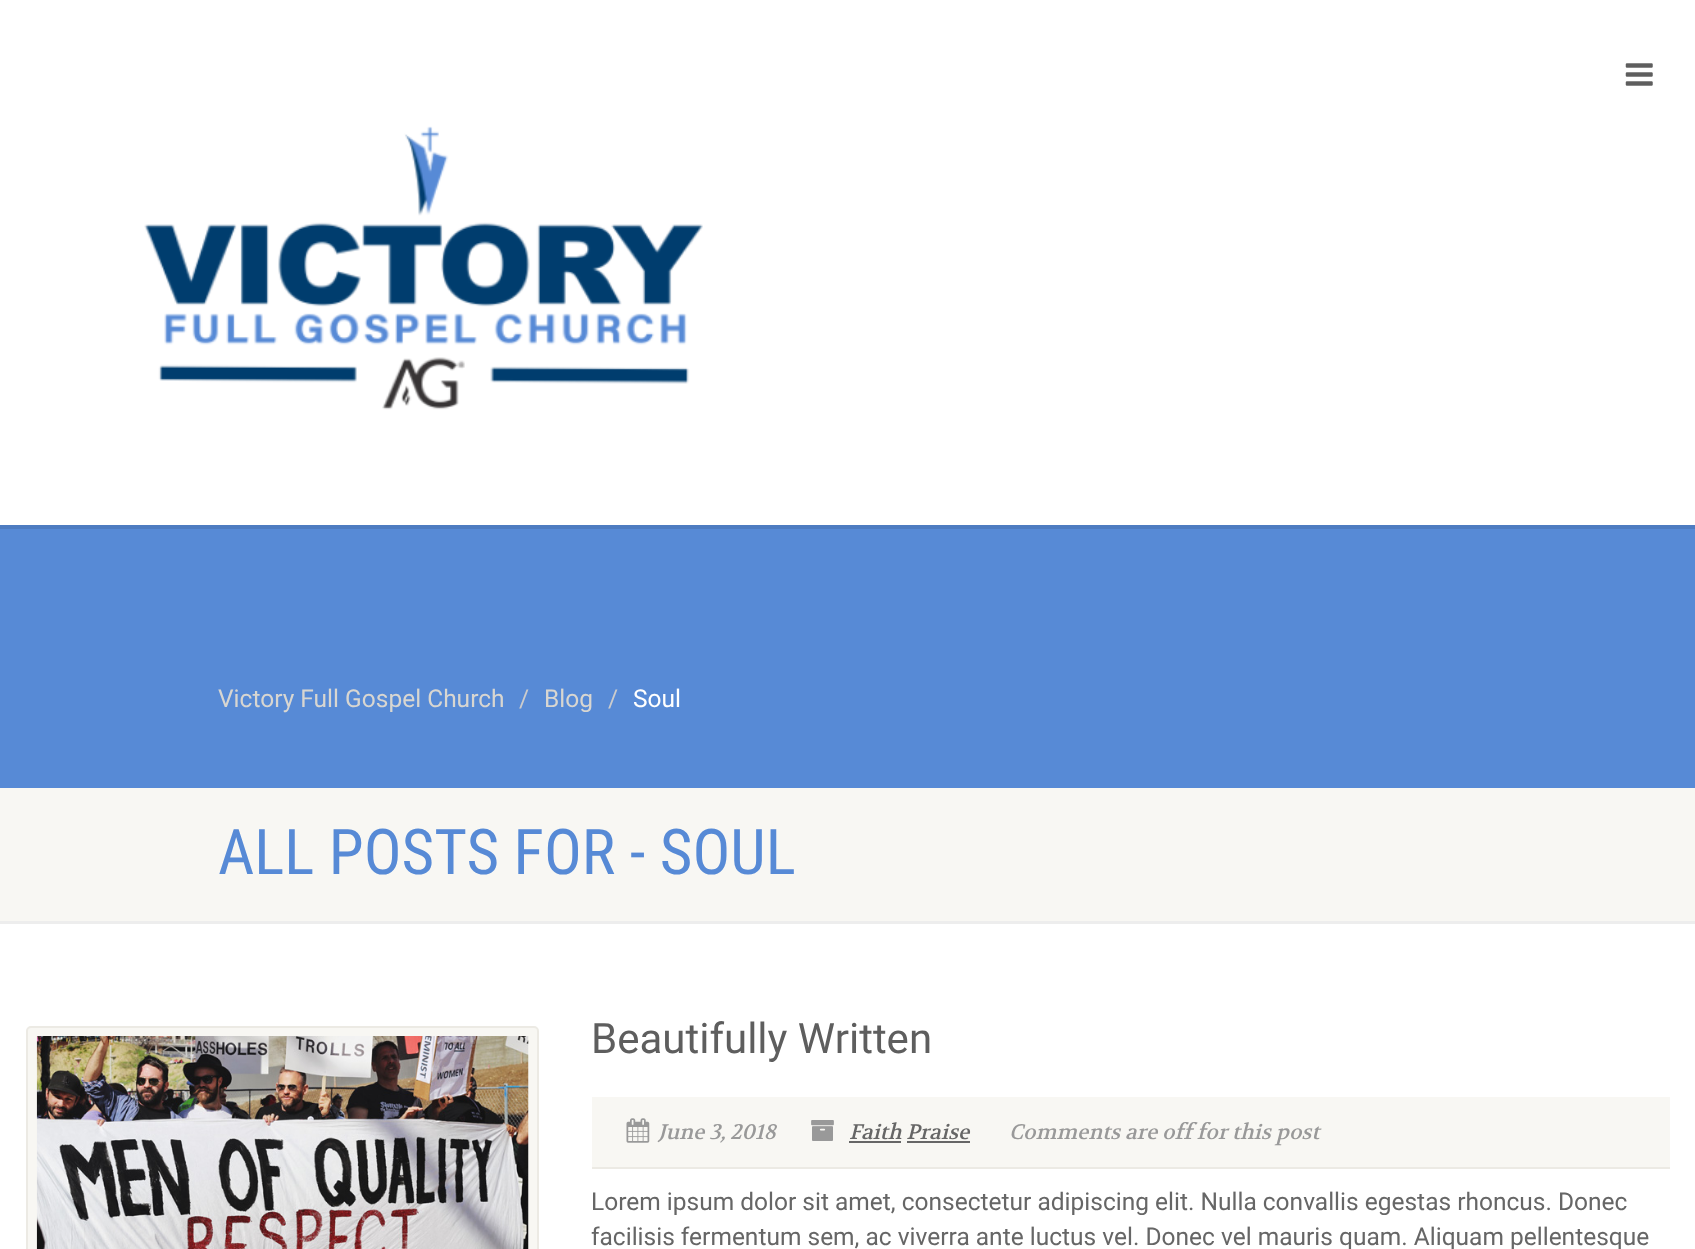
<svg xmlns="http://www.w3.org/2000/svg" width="1695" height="1249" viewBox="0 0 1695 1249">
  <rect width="100%" height="100%" fill="rgb(255,255,255)"/>
  <path d="M0 525V529H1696V4V525Z" fill="rgb(78,124,193)"/>
  <image x="1625" y="63" width="28" height="23" href="pic1.png"/>
  <image x="144" y="126" width="559" height="284" href="pic2.png"/>
  <rect x="0" y="529" width="1695" height="259" fill="rgb(87,138,214)"/>
  <text x="218" y="707" font-family="Roboto" font-size="24.5" fill="rgb(216,214,209)">Victory Full Gospel Church</text>
  <text x="519" y="707" font-family="Roboto" font-size="24.5" fill="rgb(204,204,204)">/</text>
  <text x="544" y="707" font-family="Roboto" font-size="24.5" fill="rgb(216,214,209)">Blog</text>
  <text x="608" y="707" font-family="Roboto" font-size="24.5" fill="rgb(204,204,204)">/</text>
  <text x="633" y="707" font-family="Roboto" font-size="24.5" fill="rgb(255,255,255)">Soul</text>
  <path d="M0 920V924H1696V791V920Z" fill="rgb(237,237,237)"/>
  <rect x="0" y="788" width="1695" height="133" fill="rgb(248,247,243)"/>
  <text x="218" y="874" font-family="Roboto Condensed" font-size="63" fill="rgb(87,138,214)">ALL POSTS FOR - SOUL</text>
  <rect x="27" y="1027" width="511" height="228" rx="4" fill="rgb(248,247,243)" stroke="rgb(236,234,228)" stroke-width="2"/>
  <image x="36" y="1036" width="493" height="213" href="pic3.png"/>
  <text x="591" y="1053" font-family="Roboto" font-size="42" fill="rgb(94,94,94)">Beautifully Written</text>
  <rect x="592" y="1097" width="1078" height="70" fill="rgb(248,247,243)"/>
  <rect x="592" y="1167" width="1078" height="2" fill="rgb(236,234,228)"/>
  <image x="626" y="1118" width="24" height="25" href="pic4.png"/>
  <text x="658" y="1139" font-family="Volkhov" font-size="21" font-style="italic" fill="rgb(153,153,153)">June 3, 2018</text>
  <image x="811" y="1120" width="23" height="21" href="pic5.png"/>
  <text x="849" y="1139" font-family="Volkhov" font-size="21" font-style="italic" fill="rgb(102,102,102)">Faith Praise</text>
  <rect x="849" y="1141" width="52" height="2" fill="rgb(102,102,102)"/>
  <rect x="907" y="1141" width="63" height="2" fill="rgb(102,102,102)"/>
  <text x="1009" y="1139" font-family="Volkhov" font-size="21" font-style="italic" fill="rgb(153,153,153)">Comments are off for this post</text>
  <g font-family="Roboto" font-size="24.5" fill="rgb(102,102,102)">
    <text>
      <tspan x="591" y="1210">Lorem ipsum dolor sit amet, consectetur adipiscing elit. Nulla convallis egestas rhoncus. Donec</tspan>
      <tspan x="591" y="1245">facilisis fermentum sem, ac viverra ante luctus vel. Donec vel mauris quam. Aliquam pellentesque</tspan>
    </text>
  </g>
</svg>
